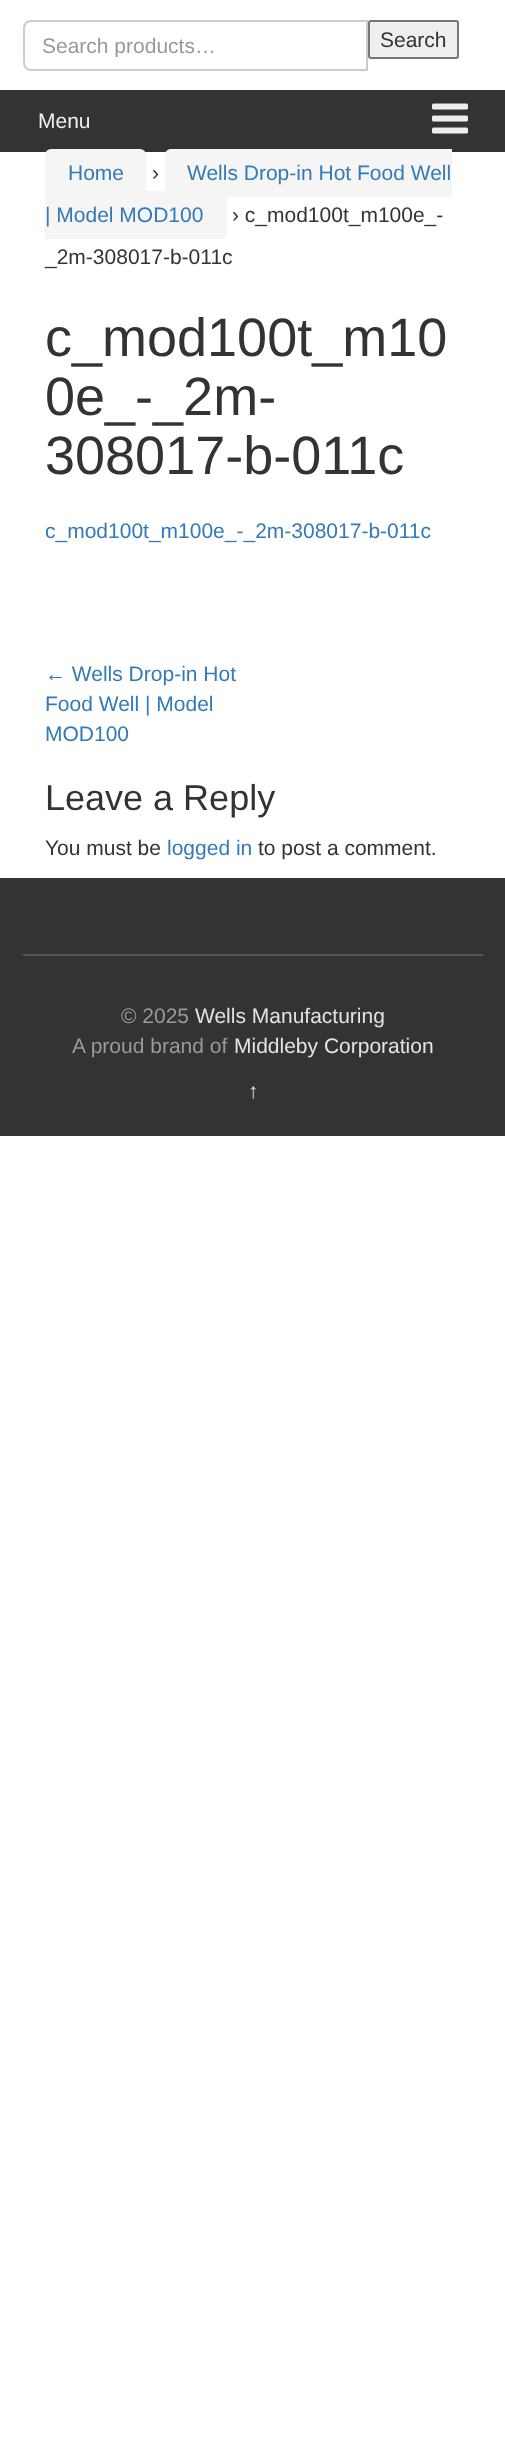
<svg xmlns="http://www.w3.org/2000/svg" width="505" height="2441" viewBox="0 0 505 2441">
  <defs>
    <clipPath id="clip1"><rect x="42" y="33" width="300" height="24"/></clipPath>
  </defs>
  <rect width="100%" height="100%" fill="rgb(255,255,255)"/>
  <path d="M31 21H367V70H31C27 70 24 67 24 63V28C24 24 27 21 31 21Z" fill="none" stroke="rgb(204,204,204)" stroke-width="2"/>
  <g clip-path="url(#clip1)">
    <text x="42" y="53" font-family="Liberation Sans" font-size="21" fill="rgb(153,153,153)">Search products…</text>
  </g>
  <rect x="369" y="21" width="89" height="37" rx="2" fill="rgb(239,239,239)" stroke="rgb(118,118,118)" stroke-width="2"/>
  <text x="380" y="47" font-family="Liberation Sans" font-size="21" fill="rgb(51,51,51)">Search</text>
  <rect x="0" y="90" width="505" height="62" fill="rgb(51,51,51)"/>
  <text x="38" y="128" font-family="Liberation Sans" font-size="21" fill="rgb(238,238,238)">Menu</text>
  <image x="432" y="103" width="36" height="31" href="pic1.png"/>
  <rect x="45" y="149" width="101" height="48" rx="6" fill="rgb(245,245,245)"/>
  <text x="68" y="180" font-family="Liberation Sans" font-size="21" fill="rgb(51,122,183)">Home</text>
  <text x="152" y="180" font-family="Liberation Sans" font-size="21" fill="rgb(51,51,51)">›</text>
  <path d="M171 149H452V197H171C167.5 197 165 194.5 165 191V155C165 151.5 167.5 149 171 149Z" fill="rgb(245,245,245)"/>
  <text x="187" y="180" font-family="Liberation Sans" font-size="21" fill="rgb(51,122,183)">Wells Drop-in Hot Food Well</text>
  <path d="M45 191H221C224.5 191 227 193.5 227 197V233C227 236.5 224.5 239 221 239H45Z" fill="rgb(245,245,245)"/>
  <text x="45" y="222" font-family="Liberation Sans" font-size="21" fill="rgb(51,122,183)">| Model MOD100</text>
  <g font-family="Liberation Sans" font-size="21" fill="rgb(51,51,51)">
    <text x="232" y="222">› c_mod100t_m100e_-</text>
    <text x="45" y="264">_2m-308017-b-011c</text>
  </g>
  <g font-family="Liberation Sans" font-size="54" fill="rgb(51,51,51)">
    <text>
      <tspan x="45" y="356">c_mod100t_m10</tspan>
      <tspan x="45" y="415">0e_-_2m-</tspan>
      <tspan x="45" y="474">308017-b-011c</tspan>
    </text>
  </g>
  <g font-family="Liberation Sans" font-size="21" fill="rgb(51,122,183)">
    <text x="45" y="538">c_mod100t_m100e_-_2m-308017-b-011c</text>
    <text>
      <tspan x="45" y="681">← Wells Drop-in Hot</tspan>
      <tspan x="45" y="711">Food Well | Model</tspan>
      <tspan x="45" y="741">MOD100</tspan>
    </text>
  </g>
  <text x="45" y="810" font-family="Liberation Sans" font-size="36" fill="rgb(51,51,51)">Leave a Reply</text>
  <text x="45" y="855" font-family="Liberation Sans" font-size="21" fill="rgb(51,51,51)">You must be</text>
  <text x="167" y="855" font-family="Liberation Sans" font-size="21" fill="rgb(51,122,183)">logged in</text>
  <text x="258" y="855" font-family="Liberation Sans" font-size="21" fill="rgb(51,51,51)">to post a comment.</text>
  <rect x="0" y="878" width="505" height="258" fill="rgb(51,51,51)"/>
  <rect x="23" y="954" width="460" height="2" fill="rgb(85,85,85)"/>
  <text x="121" y="1023" font-family="Liberation Sans" font-size="21" fill="rgb(153,153,153)">© 2025</text>
  <text x="195" y="1023" font-family="Liberation Sans" font-size="21" fill="rgb(226,226,226)">Wells Manufacturing</text>
  <text x="72" y="1053" font-family="Liberation Sans" font-size="21" fill="rgb(153,153,153)">A proud brand of</text>
  <g font-family="Liberation Sans" font-size="21" fill="rgb(226,226,226)">
    <text x="234" y="1053">Middleby Corporation</text>
    <text x="248" y="1098">↑</text>
  </g>
</svg>
